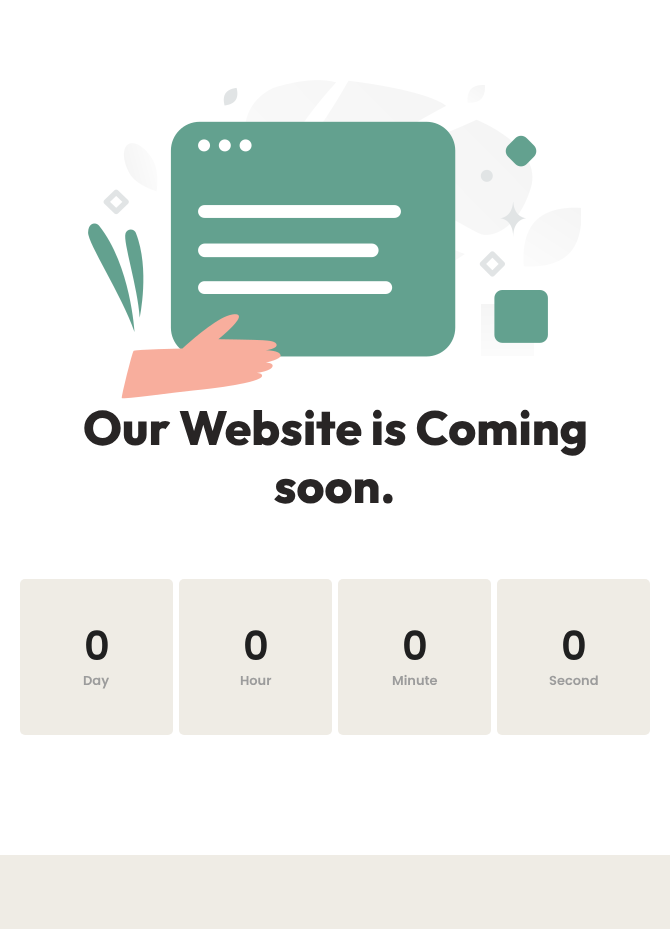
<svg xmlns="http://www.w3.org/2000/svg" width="670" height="929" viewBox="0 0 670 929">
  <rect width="100%" height="100%" fill="rgb(255,255,255)"/>
  <image x="88" y="80" width="493" height="319" href="pic1.png"/>
  <g font-family="Outfit" font-size="48" font-weight="800" fill="rgb(40,37,37)">
    <text x="83" y="445">Our Website is Coming</text>
    <text x="274" y="503">soon.</text>
  </g>
  <rect x="20" y="579" width="153" height="156" rx="5" fill="rgb(239,236,229)"/>
  <text x="84" y="660" font-family="Poppins" font-size="40" font-weight="600" fill="rgb(32,32,32)">0</text>
  <text x="83" y="685" font-family="Poppins" font-size="13" font-weight="600" fill="rgb(156,156,156)">Day</text>
  <rect x="179" y="579" width="153" height="156" rx="5" fill="rgb(239,236,229)"/>
  <text x="243" y="660" font-family="Poppins" font-size="40" font-weight="600" fill="rgb(32,32,32)">0</text>
  <text x="240" y="685" font-family="Poppins" font-size="13" font-weight="600" fill="rgb(156,156,156)">Hour</text>
  <rect x="338" y="579" width="153" height="156" rx="5" fill="rgb(239,236,229)"/>
  <text x="402" y="660" font-family="Poppins" font-size="40" font-weight="600" fill="rgb(32,32,32)">0</text>
  <text x="392" y="685" font-family="Poppins" font-size="13" font-weight="600" fill="rgb(156,156,156)">Minute</text>
  <rect x="497" y="579" width="153" height="156" rx="5" fill="rgb(239,236,229)"/>
  <text x="561" y="660" font-family="Poppins" font-size="40" font-weight="600" fill="rgb(32,32,32)">0</text>
  <text x="549" y="685" font-family="Poppins" font-size="13" font-weight="600" fill="rgb(156,156,156)">Second</text>
  <rect x="0" y="855" width="670" height="74" fill="rgb(239,236,229)"/>
</svg>
